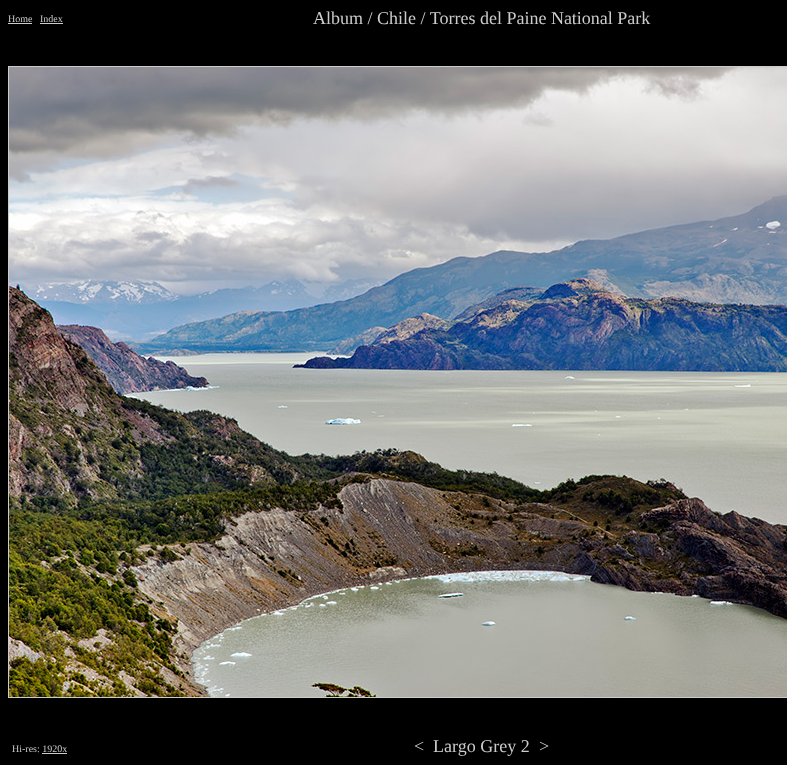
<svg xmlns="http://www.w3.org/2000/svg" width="787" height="765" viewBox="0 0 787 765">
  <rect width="100%" height="100%" fill="rgb(0,0,0)"/>
  <text x="8" y="22" font-family="Liberation Serif" font-size="10" fill="rgb(204,204,204)">Home</text>
  <rect x="8" y="23" width="24" height="1" fill="rgb(204,204,204)"/>
  <text x="40" y="22" font-family="Liberation Serif" font-size="10" fill="rgb(204,204,204)">Index</text>
  <rect x="40" y="23" width="23" height="1" fill="rgb(204,204,204)"/>
  <text x="313" y="24" font-family="Liberation Serif" font-size="18" fill="rgb(204,204,204)">Album / Chile / Torres del Paine National Park</text>
  <rect x="8.5" y="66.5" width="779" height="631" fill="none" stroke="rgb(204,204,204)"/>
  <image x="9" y="67" width="778" height="630" href="pic1.png"/>
  <text x="12" y="752" font-family="Liberation Serif" font-size="10" fill="rgb(204,204,204)">Hi-res: 1920x</text>
  <rect x="42" y="753" width="25" height="1" fill="rgb(204,204,204)"/>
  <g font-family="Liberation Serif" font-size="18" fill="rgb(204,204,204)">
    <text x="414" y="752">&lt;</text>
    <text x="433" y="752">Largo Grey 2</text>
    <text x="539" y="752">&gt;</text>
  </g>
</svg>
